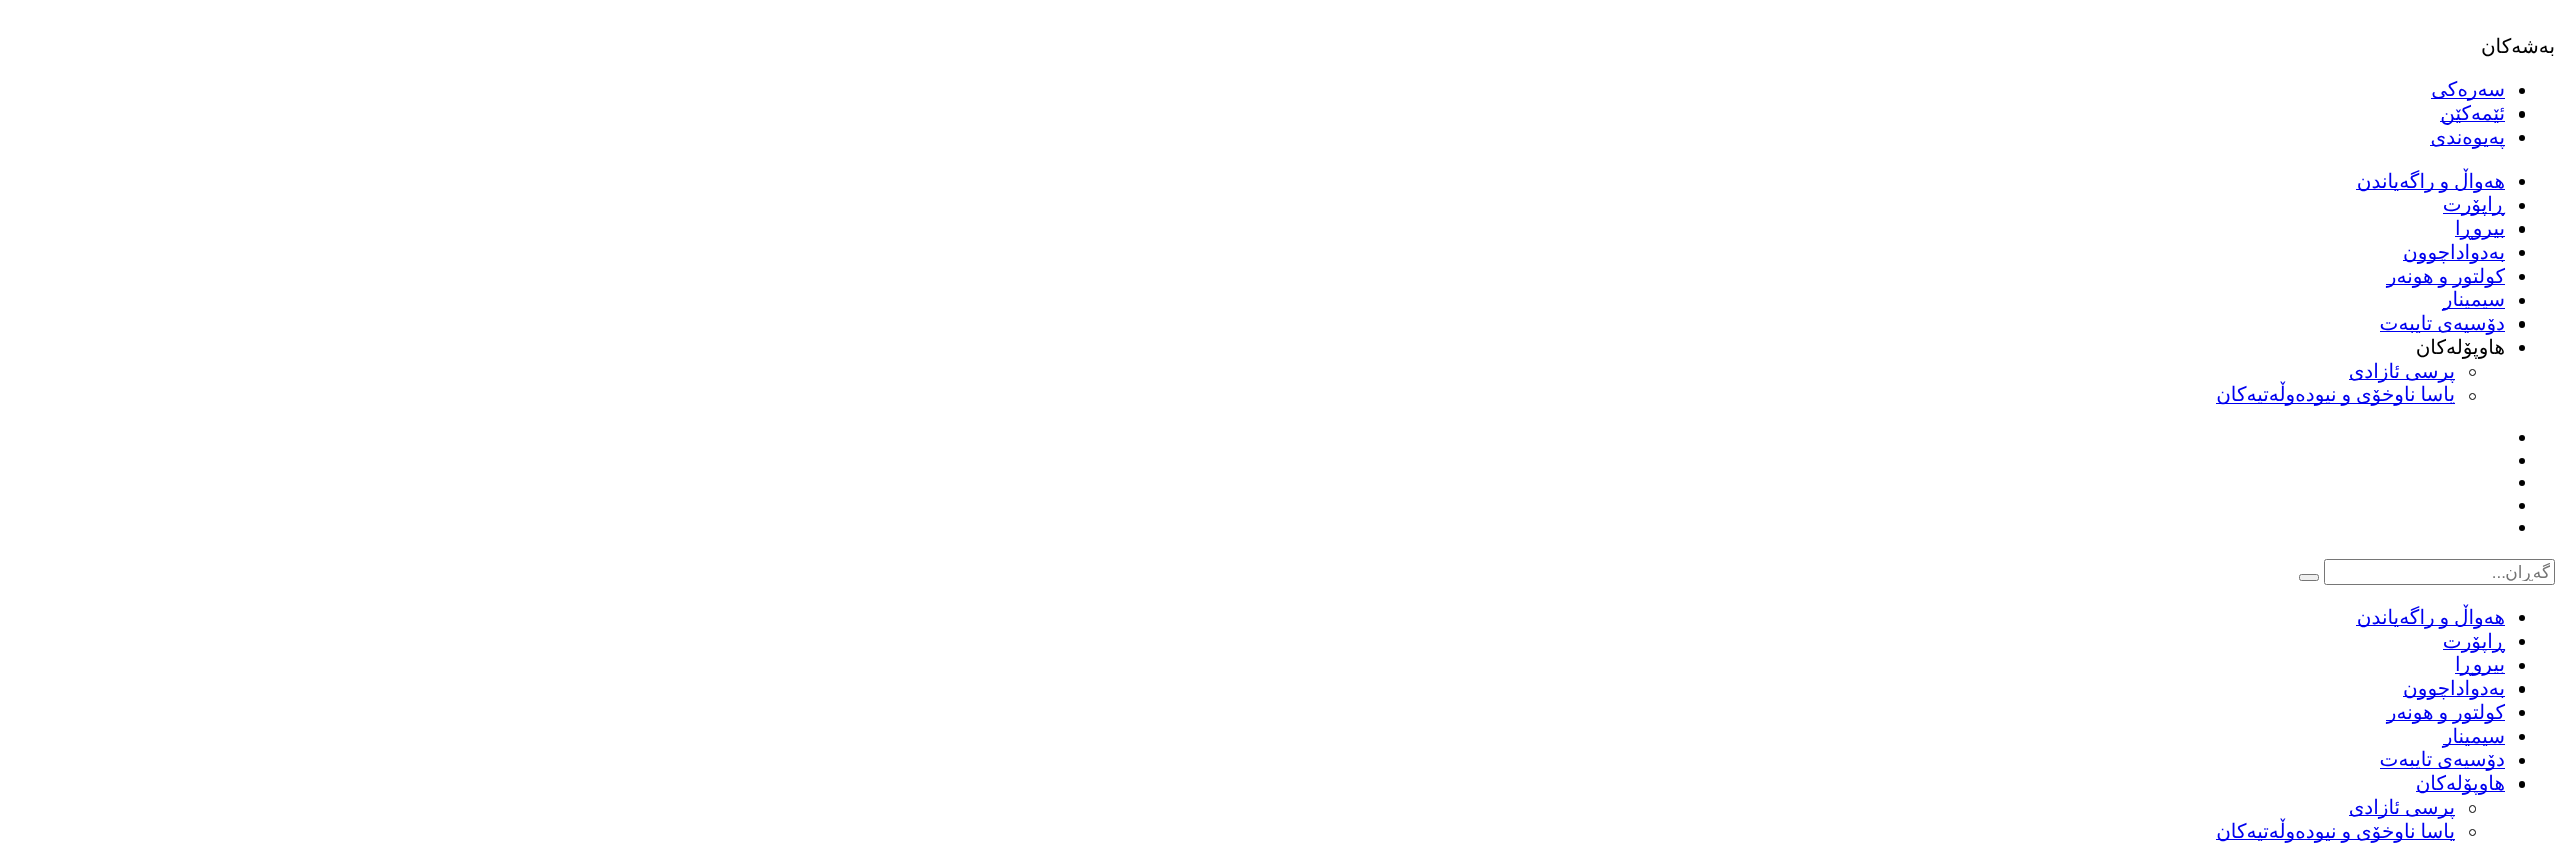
<svg xmlns="http://www.w3.org/2000/svg" width="2564" height="861" viewBox="0 0 2564 861">
  <defs>
    <clipPath id="clip1"><rect x="2329" y="563" width="221" height="18"/></clipPath>
  </defs>
  <rect width="100%" height="100%" fill="rgb(255,255,255)"/>
  <text x="2555" y="53" font-family="DejaVu Sans" font-size="20" direction="rtl" fill="rgb(0,0,0)">بەشەکان</text>
  <circle cx="2522" cy="91" r="3" fill="rgb(0,0,0)"/>
  <rect x="2431" y="98" width="74" height="1" fill="rgb(0,0,238)"/>
  <text x="2505" y="96" font-family="DejaVu Sans" font-size="20" direction="rtl" fill="rgb(0,0,238)">سەرەکی</text>
  <rect x="2519" y="111" width="6" height="7" rx="3" fill="rgb(0,0,0)"/>
  <rect x="2440" y="121" width="65" height="1" fill="rgb(0,0,238)"/>
  <text x="2505" y="120" font-family="DejaVu Sans" font-size="20" direction="rtl" fill="rgb(0,0,238)">ئێمەکێن</text>
  <circle cx="2522" cy="138" r="3" fill="rgb(0,0,0)"/>
  <rect x="2430" y="145" width="75" height="1" fill="rgb(0,0,238)"/>
  <text x="2505" y="144" font-family="DejaVu Sans" font-size="20" direction="rtl" fill="rgb(0,0,238)">پەیوەندی</text>
  <circle cx="2522" cy="182" r="3" fill="rgb(0,0,0)"/>
  <rect x="2356" y="189" width="149" height="1" fill="rgb(0,0,238)"/>
  <text x="2505" y="188" word-spacing="-1.5" font-family="DejaVu Sans" font-size="20" direction="rtl" fill="rgb(0,0,238)">هەواڵ و راگەیاندن</text>
  <circle cx="2522" cy="206" r="3" fill="rgb(0,0,0)"/>
  <rect x="2443" y="213" width="62" height="1" fill="rgb(0,0,238)"/>
  <text x="2505" y="211" font-family="DejaVu Sans" font-size="20" direction="rtl" fill="rgb(0,0,238)">ڕاپۆرت</text>
  <rect x="2519" y="226" width="6" height="7" rx="3" fill="rgb(0,0,0)"/>
  <rect x="2455" y="236" width="50" height="1" fill="rgb(0,0,238)"/>
  <text x="2505" y="235" font-family="DejaVu Sans" font-size="20" direction="rtl" fill="rgb(0,0,238)">بیروڕا</text>
  <circle cx="2522" cy="253" r="3" fill="rgb(0,0,0)"/>
  <rect x="2403" y="260" width="102" height="1" fill="rgb(0,0,238)"/>
  <text x="2505" y="259" font-family="DejaVu Sans" font-size="20" direction="rtl" fill="rgb(0,0,238)">بەدواداچوون</text>
  <circle cx="2522" cy="277" r="3" fill="rgb(0,0,0)"/>
  <rect x="2386" y="284" width="119" height="1" fill="rgb(0,0,238)"/>
  <text x="2505" y="283" word-spacing="-1.5" font-family="DejaVu Sans" font-size="20" direction="rtl" fill="rgb(0,0,238)">کولتور و هونەر</text>
  <circle cx="2522" cy="301" r="3" fill="rgb(0,0,0)"/>
  <rect x="2443" y="308" width="62" height="1" fill="rgb(0,0,238)"/>
  <text x="2505" y="306" font-family="DejaVu Sans" font-size="20" direction="rtl" fill="rgb(0,0,238)">سیمینار</text>
  <rect x="2519" y="321" width="6" height="7" rx="3" fill="rgb(0,0,0)"/>
  <rect x="2380" y="331" width="125" height="1" fill="rgb(0,0,238)"/>
  <text x="2505" y="330" word-spacing="-1.5" font-family="DejaVu Sans" font-size="20" direction="rtl" fill="rgb(0,0,238)">دۆسیەی تایبەت</text>
  <circle cx="2522" cy="348" r="3" fill="rgb(0,0,0)"/>
  <text x="2505" y="354" font-family="DejaVu Sans" font-size="20" direction="rtl" fill="rgb(0,0,0)">هاوپۆلەکان</text>
  <circle cx="2472.5" cy="372.5" r="3" fill="none" stroke="rgb(0,0,0)"/>
  <rect x="2349" y="379" width="106" height="1" fill="rgb(0,0,238)"/>
  <text x="2455" y="378" word-spacing="-1.5" font-family="DejaVu Sans" font-size="20" direction="rtl" fill="rgb(0,0,238)">پرسی ئازادی</text>
  <circle cx="2472.5" cy="396.5" r="3" fill="none" stroke="rgb(0,0,0)"/>
  <rect x="2216" y="403" width="239" height="1" fill="rgb(0,0,238)"/>
  <text x="2455" y="401" word-spacing="-1.5" font-family="DejaVu Sans" font-size="20" direction="rtl" fill="rgb(0,0,238)">یاسا ناوخۆی و نیودەوڵەتیەکان</text>
  <circle cx="2522" cy="438" r="3" fill="rgb(0,0,0)"/>
  <circle cx="2522" cy="461" r="3" fill="rgb(0,0,0)"/>
  <circle cx="2522" cy="483" r="3" fill="rgb(0,0,0)"/>
  <circle cx="2522" cy="506" r="3" fill="rgb(0,0,0)"/>
  <circle cx="2522" cy="528" r="3" fill="rgb(0,0,0)"/>
  <rect x="2324.5" y="559.5" width="230" height="25" rx="2" fill="none" stroke="rgb(118,118,118)"/>
  <g clip-path="url(#clip1)">
    <text x="2550" y="578" font-family="DejaVu Sans" font-size="17" direction="rtl" fill="rgb(117,117,117)">گەڕان</text>
  </g>
  <text x="2506" y="578" font-family="Liberation Sans" font-size="17" direction="rtl" fill="rgb(117,117,117)">...</text>
  <rect x="2299.5" y="574.5" width="19" height="6" rx="2" fill="rgb(239,239,239)" stroke="rgb(118,118,118)"/>
  <circle cx="2522" cy="618" r="3" fill="rgb(0,0,0)"/>
  <rect x="2356" y="625" width="149" height="1" fill="rgb(0,0,238)"/>
  <text x="2505" y="624" word-spacing="-1.5" font-family="DejaVu Sans" font-size="20" direction="rtl" fill="rgb(0,0,238)">هەواڵ و راگەیاندن</text>
  <circle cx="2522" cy="642" r="3" fill="rgb(0,0,0)"/>
  <rect x="2443" y="649" width="62" height="1" fill="rgb(0,0,238)"/>
  <text x="2505" y="648" font-family="DejaVu Sans" font-size="20" direction="rtl" fill="rgb(0,0,238)">ڕاپۆرت</text>
  <circle cx="2522" cy="666" r="3" fill="rgb(0,0,0)"/>
  <rect x="2455" y="673" width="50" height="1" fill="rgb(0,0,238)"/>
  <text x="2505" y="671" font-family="DejaVu Sans" font-size="20" direction="rtl" fill="rgb(0,0,238)">بیروڕا</text>
  <rect x="2519" y="686" width="6" height="7" rx="3" fill="rgb(0,0,0)"/>
  <rect x="2403" y="696" width="102" height="1" fill="rgb(0,0,238)"/>
  <text x="2505" y="695" font-family="DejaVu Sans" font-size="20" direction="rtl" fill="rgb(0,0,238)">بەدواداچوون</text>
  <circle cx="2522" cy="713" r="3" fill="rgb(0,0,0)"/>
  <rect x="2386" y="720" width="119" height="1" fill="rgb(0,0,238)"/>
  <text x="2505" y="719" word-spacing="-1.5" font-family="DejaVu Sans" font-size="20" direction="rtl" fill="rgb(0,0,238)">کولتور و هونەر</text>
  <circle cx="2522" cy="737" r="3" fill="rgb(0,0,0)"/>
  <rect x="2443" y="744" width="62" height="1" fill="rgb(0,0,238)"/>
  <text x="2505" y="743" font-family="DejaVu Sans" font-size="20" direction="rtl" fill="rgb(0,0,238)">سیمینار</text>
  <circle cx="2522" cy="761" r="3" fill="rgb(0,0,0)"/>
  <rect x="2380" y="768" width="125" height="1" fill="rgb(0,0,238)"/>
  <text x="2505" y="766" word-spacing="-1.5" font-family="DejaVu Sans" font-size="20" direction="rtl" fill="rgb(0,0,238)">دۆسیەی تایبەت</text>
  <rect x="2519" y="781" width="6" height="7" rx="3" fill="rgb(0,0,0)"/>
  <rect x="2416" y="791" width="89" height="1" fill="rgb(0,0,238)"/>
  <text x="2505" y="790" font-family="DejaVu Sans" font-size="20" direction="rtl" fill="rgb(0,0,238)">هاوپۆلەکان</text>
  <rect x="2469.5" y="805.5" width="6" height="7" rx="3" fill="none" stroke="rgb(0,0,0)"/>
  <rect x="2349" y="815" width="106" height="1" fill="rgb(0,0,238)"/>
  <text x="2455" y="814" word-spacing="-1.5" font-family="DejaVu Sans" font-size="20" direction="rtl" fill="rgb(0,0,238)">پرسی ئازادی</text>
  <circle cx="2472.5" cy="832.5" r="3" fill="none" stroke="rgb(0,0,0)"/>
  <rect x="2216" y="839" width="239" height="1" fill="rgb(0,0,238)"/>
  <text x="2455" y="838" word-spacing="-1.5" font-family="DejaVu Sans" font-size="20" direction="rtl" fill="rgb(0,0,238)">یاسا ناوخۆی و نیودەوڵەتیەکان</text>
</svg>
